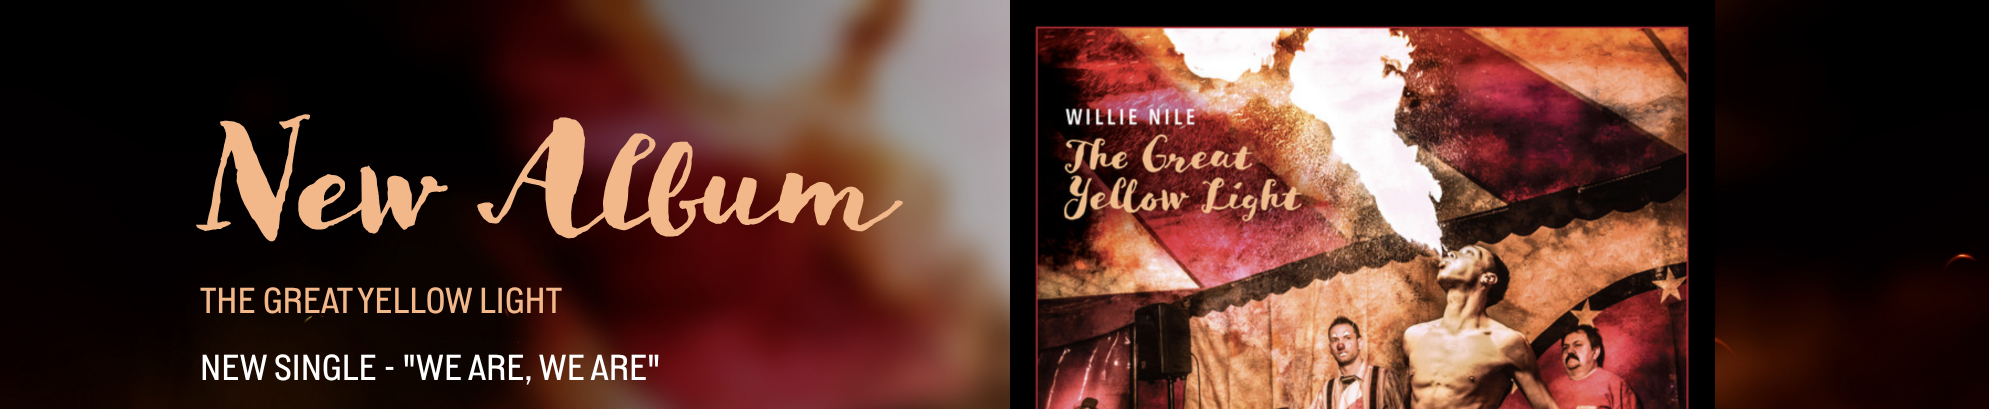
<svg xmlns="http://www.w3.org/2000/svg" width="1989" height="409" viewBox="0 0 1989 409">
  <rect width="100%" height="100%" fill="rgb(255,255,255)"/>
  <image x="0" y="0" width="1989" height="409" href="pic1.png"/>
  <text x="200" y="230" font-family="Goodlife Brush" font-size="150" fill="rgb(243,184,137)">New Album</text>
  <text x="200" y="313" font-family="'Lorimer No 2'" font-size="36" font-weight="500" fill="rgb(243,184,137)">THE GREAT YELLOW LIGHT</text>
  <text x="200" y="380" font-family="'Lorimer No 2'" font-size="36" font-weight="500" fill="rgb(255,255,255)">NEW SINGLE - "WE ARE, WE ARE"</text>
  <image x="1010" y="0" width="705" height="409" href="pic2.png"/>
</svg>
